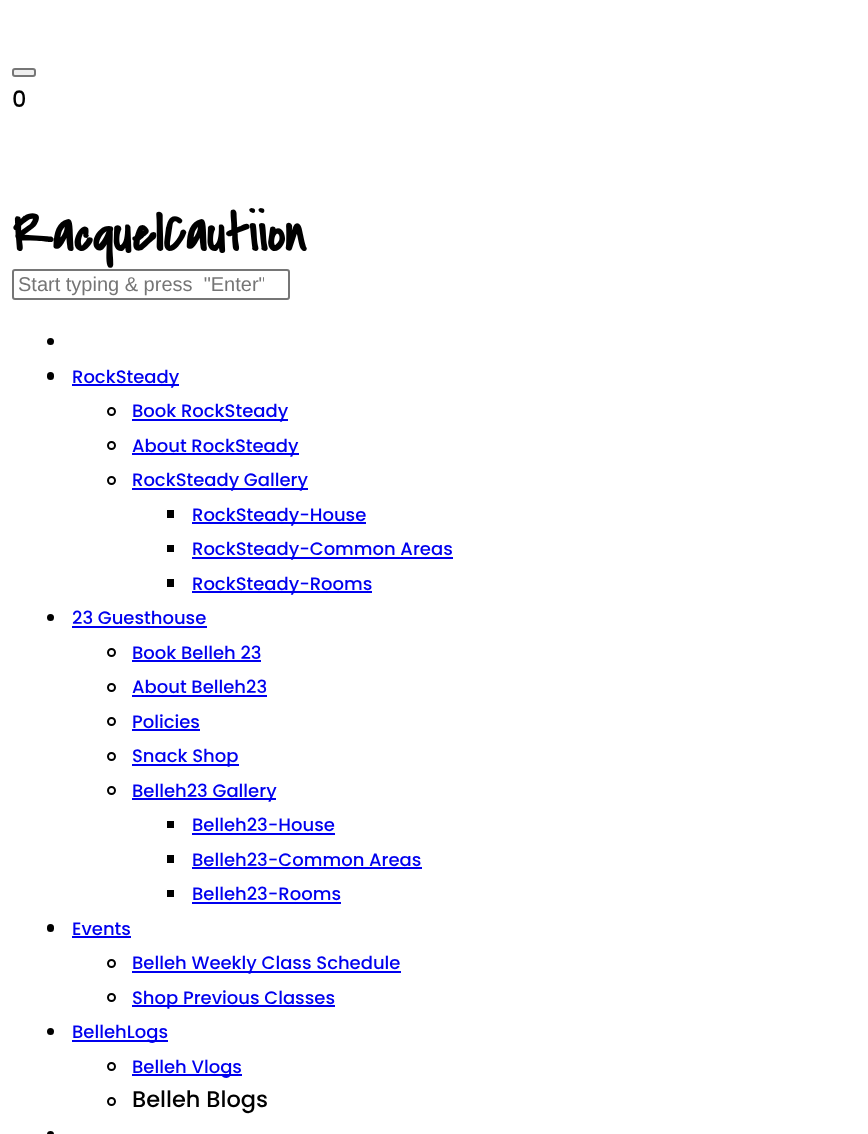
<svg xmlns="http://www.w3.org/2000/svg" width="868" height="1134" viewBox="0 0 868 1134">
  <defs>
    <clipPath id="clip1"><rect x="18" y="273" width="246" height="23"/></clipPath>
  </defs>
  <rect width="100%" height="100%" fill="rgb(255,255,255)"/>
  <rect x="13" y="69" width="22" height="7" rx="2" fill="rgb(239,239,239)" stroke="rgb(118,118,118)" stroke-width="2"/>
  <text x="12" y="107" font-family="Poppins" font-size="22.5" font-weight="500" fill="rgb(0,0,0)">0</text>
  <rect x="13" y="270" width="276" height="29" rx="2" fill="none" stroke="rgb(118,118,118)" stroke-width="2"/>
  <g clip-path="url(#clip1)">
    <text x="18" y="291" font-family="Liberation Sans" font-size="20" fill="rgb(117,117,117)" xml:space="preserve">Start typing &amp; press  "Enter"</text>
  </g>
  <circle cx="50.5" cy="341.5" r="3.5" fill="rgb(0,0,0)"/>
  <rect x="47" y="372" width="7" height="8" rx="3.5" fill="rgb(0,0,0)"/>
  <rect x="72" y="384" width="107" height="2" fill="rgb(0,0,238)"/>
  <text x="72" y="383" font-family="Poppins" font-size="18" font-weight="500" fill="rgb(0,0,238)">RockSteady</text>
  <circle cx="111.5" cy="411.5" r="3.5" fill="none" stroke="rgb(0,0,0)" stroke-width="2"/>
  <rect x="132" y="419" width="156" height="2" fill="rgb(0,0,238)"/>
  <text x="132" y="417" font-family="Poppins" font-size="18" font-weight="500" fill="rgb(0,0,238)">Book RockSteady</text>
  <circle cx="111.5" cy="445.5" r="3.5" fill="none" stroke="rgb(0,0,0)" stroke-width="2"/>
  <rect x="132" y="453" width="167" height="2" fill="rgb(0,0,238)"/>
  <text x="132" y="452" font-family="Poppins" font-size="18" font-weight="500" fill="rgb(0,0,238)">About RockSteady</text>
  <circle cx="111.5" cy="480.5" r="3.5" fill="none" stroke="rgb(0,0,0)" stroke-width="2"/>
  <rect x="132" y="488" width="176" height="2" fill="rgb(0,0,238)"/>
  <text x="132" y="486" font-family="Poppins" font-size="18" font-weight="500" fill="rgb(0,0,238)">RockSteady Gallery</text>
  <rect x="167" y="510" width="7" height="8" fill="rgb(0,0,0)"/>
  <rect x="192" y="522" width="174" height="2" fill="rgb(0,0,238)"/>
  <text x="192" y="521" font-family="Poppins" font-size="18" font-weight="500" fill="rgb(0,0,238)">RockSteady-House</text>
  <rect x="167" y="545" width="7" height="7" fill="rgb(0,0,0)"/>
  <rect x="192" y="557" width="261" height="2" fill="rgb(0,0,238)"/>
  <text x="192" y="555" font-family="Poppins" font-size="18" font-weight="500" fill="rgb(0,0,238)">RockSteady-Common Areas</text>
  <rect x="167" y="579" width="7" height="8" fill="rgb(0,0,0)"/>
  <rect x="192" y="591" width="180" height="2" fill="rgb(0,0,238)"/>
  <text x="192" y="590" font-family="Poppins" font-size="18" font-weight="500" fill="rgb(0,0,238)">RockSteady-Rooms</text>
  <circle cx="50.5" cy="617.5" r="3.5" fill="rgb(0,0,0)"/>
  <text x="72" y="624" font-family="Poppins" font-size="18" font-weight="500" fill="rgb(0,0,238)">23 Guesthouse</text>
  <rect x="72" y="626" width="135" height="2" fill="rgb(0,0,238)"/>
  <circle cx="111.5" cy="652.5" r="3.5" fill="none" stroke="rgb(0,0,0)" stroke-width="2"/>
  <text x="132" y="659" font-family="Poppins" font-size="18" font-weight="500" fill="rgb(0,0,238)">Book Belleh 23</text>
  <rect x="132" y="660" width="129" height="2" fill="rgb(0,0,238)"/>
  <circle cx="111.5" cy="687.5" r="3.5" fill="none" stroke="rgb(0,0,0)" stroke-width="2"/>
  <text x="132" y="693" font-family="Poppins" font-size="18" font-weight="500" fill="rgb(0,0,238)">About Belleh23</text>
  <rect x="132" y="695" width="135" height="2" fill="rgb(0,0,238)"/>
  <circle cx="111.5" cy="721.5" r="3.5" fill="none" stroke="rgb(0,0,0)" stroke-width="2"/>
  <text x="132" y="728" font-family="Poppins" font-size="18" font-weight="500" fill="rgb(0,0,238)">Policies</text>
  <rect x="132" y="729" width="68" height="2" fill="rgb(0,0,238)"/>
  <circle cx="111.5" cy="756.5" r="3.5" fill="none" stroke="rgb(0,0,0)" stroke-width="2"/>
  <rect x="132" y="764" width="107" height="2" fill="rgb(0,0,238)"/>
  <text x="132" y="762" font-family="Poppins" font-size="18" font-weight="500" fill="rgb(0,0,238)">Snack Shop</text>
  <circle cx="111.5" cy="790.5" r="3.5" fill="none" stroke="rgb(0,0,0)" stroke-width="2"/>
  <rect x="132" y="798" width="144" height="2" fill="rgb(0,0,238)"/>
  <text x="132" y="797" font-family="Poppins" font-size="18" font-weight="500" fill="rgb(0,0,238)">Belleh23 Gallery</text>
  <rect x="167" y="821" width="7" height="7" fill="rgb(0,0,0)"/>
  <text x="192" y="831" font-family="Poppins" font-size="18" font-weight="500" fill="rgb(0,0,238)">Belleh23-House</text>
  <rect x="192" y="833" width="143" height="2" fill="rgb(0,0,238)"/>
  <rect x="167" y="855" width="7" height="8" fill="rgb(0,0,0)"/>
  <text x="192" y="866" font-family="Poppins" font-size="18" font-weight="500" fill="rgb(0,0,238)">Belleh23-Common Areas</text>
  <rect x="192" y="867" width="230" height="2" fill="rgb(0,0,238)"/>
  <rect x="167" y="890" width="7" height="7" fill="rgb(0,0,0)"/>
  <text x="192" y="900" font-family="Poppins" font-size="18" font-weight="500" fill="rgb(0,0,238)">Belleh23-Rooms</text>
  <rect x="192" y="902" width="149" height="2" fill="rgb(0,0,238)"/>
  <rect x="47" y="924" width="7" height="8" rx="3.5" fill="rgb(0,0,0)"/>
  <text x="72" y="935" font-family="Poppins" font-size="18" font-weight="500" fill="rgb(0,0,238)">Events</text>
  <rect x="72" y="936" width="59" height="2" fill="rgb(0,0,238)"/>
  <circle cx="111.5" cy="963.5" r="3.5" fill="none" stroke="rgb(0,0,0)" stroke-width="2"/>
  <rect x="132" y="971" width="269" height="2" fill="rgb(0,0,238)"/>
  <text x="132" y="969" font-family="Poppins" font-size="18" font-weight="500" fill="rgb(0,0,238)">Belleh Weekly Class Schedule</text>
  <circle cx="111.5" cy="997.5" r="3.5" fill="none" stroke="rgb(0,0,0)" stroke-width="2"/>
  <rect x="132" y="1005" width="203" height="2" fill="rgb(0,0,238)"/>
  <text x="132" y="1004" font-family="Poppins" font-size="18" font-weight="500" fill="rgb(0,0,238)">Shop Previous Classes</text>
  <circle cx="50.5" cy="1031.5" r="3.5" fill="rgb(0,0,0)"/>
  <rect x="72" y="1040" width="96" height="2" fill="rgb(0,0,238)"/>
  <text x="72" y="1038" font-family="Poppins" font-size="18" font-weight="500" fill="rgb(0,0,238)">BellehLogs</text>
  <circle cx="111.5" cy="1066.5" r="3.5" fill="none" stroke="rgb(0,0,0)" stroke-width="2"/>
  <rect x="132" y="1074" width="110" height="2" fill="rgb(0,0,238)"/>
  <text x="132" y="1073" font-family="Poppins" font-size="18" font-weight="500" fill="rgb(0,0,238)">Belleh Vlogs</text>
  <circle cx="111.5" cy="1101.5" r="3.5" fill="none" stroke="rgb(0,0,0)" stroke-width="2"/>
  <text x="132" y="1107" font-family="Poppins" font-size="22.5" font-weight="500" fill="rgb(0,0,0)">Belleh Blogs</text>
  <circle cx="50.5" cy="1134.5" r="3.5" fill="rgb(0,0,0)"/>
  <text x="12" y="251" font-family="Covered By Your Grace" font-size="54" font-weight="bold" fill="rgb(0,0,0)">RacquelCautiion</text>
</svg>
